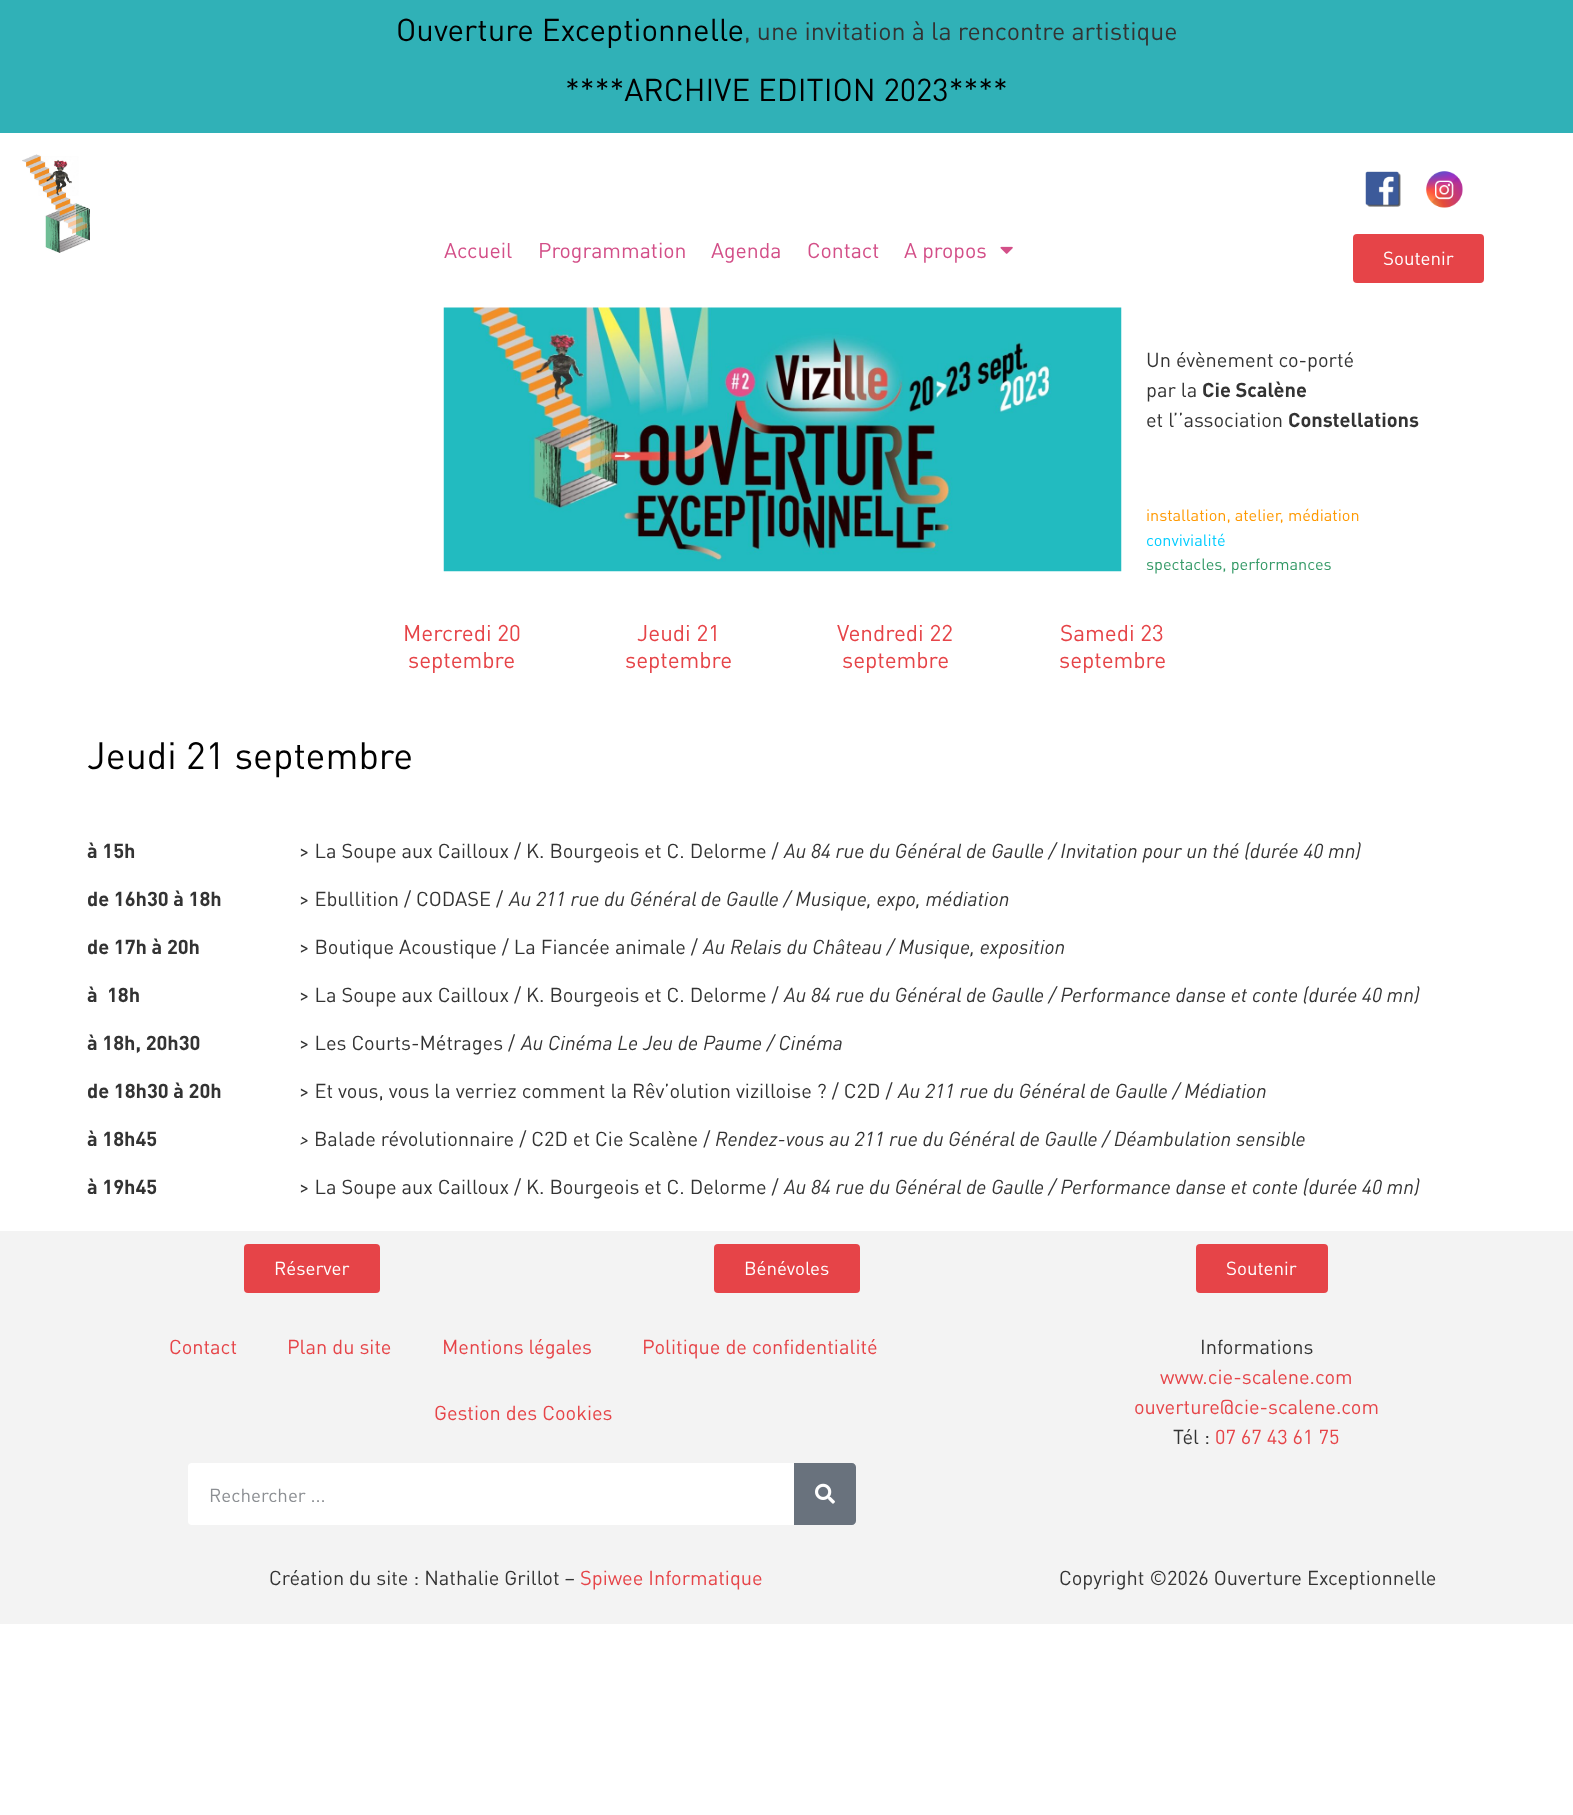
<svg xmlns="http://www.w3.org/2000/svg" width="1573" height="1815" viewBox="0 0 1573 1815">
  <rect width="100%" height="100%" fill="rgb(255,255,255)"/>
  <rect x="0" y="0" width="1573" height="133" fill="rgb(48,177,183)"/>
  <text x="396" y="41" font-family="DIN" font-size="31.25" fill="rgb(0,0,0)">Ouverture Exceptionnelle</text>
  <text x="744" y="40" font-family="DIN" font-size="25" fill="rgb(51,51,51)">, une invitation à la rencontre artistique</text>
  <text x="565" y="101" font-family="DIN" font-size="31.25" fill="rgb(0,0,0)">****ARCHIVE EDITION 2023****</text>
  <image x="22" y="154" width="68" height="99" href="pic1.png"/>
  <g font-family="DIN" font-size="21.25" fill="rgb(211,79,136)">
    <text x="444" y="258">Accueil</text>
    <text x="538" y="258">Programmation</text>
    <text x="711" y="258">Agenda</text>
    <text x="807" y="258">Contact</text>
    <text x="904" y="258">A propos</text>
  </g>
  <image x="1000" y="246" width="13" height="8" href="pic2.png"/>
  <image x="1365" y="171" width="36" height="36" href="pic3.png"/>
  <image x="1426" y="171" width="37" height="37" href="pic4.png"/>
  <rect x="1353" y="234" width="131" height="49" rx="4" fill="rgb(230,68,72)"/>
  <text x="1383" y="265" font-family="DIN" font-size="18.75" fill="rgb(255,255,255)">Soutenir</text>
  <image x="443" y="307" width="679" height="265" href="pic5.png"/>
  <g font-family="DIN" font-size="20" fill="rgb(51,51,51)">
    <text>
      <tspan x="1146" y="367">Un évènement co-porté</tspan>
      <tspan x="1146" y="397">par la</tspan>
    </text>
  </g>
  <text x="1202" y="397" font-family="DIN" font-size="20" font-weight="bold" fill="rgb(51,51,51)">Cie Scalène</text>
  <text x="1146" y="427" font-family="DIN" font-size="20" fill="rgb(51,51,51)">et l’’association</text>
  <text x="1288" y="427" font-family="DIN" font-size="20" font-weight="bold" fill="rgb(51,51,51)">Constellations</text>
  <text x="1146" y="521" font-family="DIN" font-size="16.25" fill="rgb(255,153,0)">installation, atelier, médiation</text>
  <text x="1146" y="546" font-family="DIN" font-size="16.25" fill="rgb(0,204,255)">convivialité</text>
  <text x="1146" y="570" font-family="DIN" font-size="16.25" fill="rgb(51,153,102)">spectacles, performances</text>
  <g font-family="DIN" font-size="22.5" fill="rgb(230,68,72)">
    <text x="403" y="641">Mercredi 20</text>
    <text x="408" y="668">septembre</text>
    <text x="637" y="641">Jeudi 21</text>
    <text x="625" y="668">septembre</text>
    <text x="837" y="641">Vendredi 22</text>
    <text x="842" y="668">septembre</text>
    <text x="1060" y="641">Samedi 23</text>
    <text x="1059" y="668">septembre</text>
  </g>
  <text x="87" y="769" font-family="DIN" font-size="37.5" fill="rgb(0,0,0)">Jeudi 21 septembre</text>
  <text x="87" y="858" font-family="DIN" font-size="20" font-weight="bold" fill="rgb(51,51,51)">à 15h</text>
  <text x="299" y="858" font-family="DIN" font-size="20" fill="rgb(51,51,51)">&gt; La Soupe aux Cailloux / K. Bourgeois et C. Delorme /</text>
  <text x="784" y="858" font-family="DIN" font-size="20" font-style="italic" fill="rgb(51,51,51)">Au 84 rue du Général de Gaulle / Invitation pour un thé (durée 40 mn)</text>
  <text x="87" y="906" font-family="DIN" font-size="20" font-weight="bold" fill="rgb(51,51,51)">de 16h30 à 18h</text>
  <text x="299" y="906" font-family="DIN" font-size="20" fill="rgb(51,51,51)">&gt; Ebullition / CODASE /</text>
  <text x="509" y="906" font-family="DIN" font-size="20" font-style="italic" fill="rgb(51,51,51)">Au 211 rue du Général de Gaulle / Musique, expo, médiation</text>
  <text x="87" y="954" font-family="DIN" font-size="20" font-weight="bold" fill="rgb(51,51,51)">de 17h à 20h</text>
  <text x="299" y="954" font-family="DIN" font-size="20" fill="rgb(51,51,51)">&gt; Boutique Acoustique / La Fiancée animale /</text>
  <text x="703" y="954" font-family="DIN" font-size="20" font-style="italic" fill="rgb(51,51,51)">Au Relais du Château / Musique, exposition</text>
  <text x="87" y="1002" font-family="DIN" font-size="20" font-weight="bold" fill="rgb(51,51,51)" xml:space="preserve">à  18h</text>
  <text x="299" y="1002" font-family="DIN" font-size="20" fill="rgb(51,51,51)">&gt; La Soupe aux Cailloux / K. Bourgeois et C. Delorme /</text>
  <text x="784" y="1002" font-family="DIN" font-size="20" font-style="italic" fill="rgb(51,51,51)">Au 84 rue du Général de Gaulle / Performance danse et conte (durée 40 mn)</text>
  <text x="87" y="1050" font-family="DIN" font-size="20" font-weight="bold" fill="rgb(51,51,51)">à 18h, 20h30</text>
  <text x="299" y="1050" font-family="DIN" font-size="20" fill="rgb(51,51,51)">&gt; Les Courts-Métrages /</text>
  <text x="521" y="1050" font-family="DIN" font-size="20" font-style="italic" fill="rgb(51,51,51)">Au Cinéma Le Jeu de Paume / Cinéma</text>
  <text x="87" y="1098" font-family="DIN" font-size="20" font-weight="bold" fill="rgb(51,51,51)">de 18h30 à 20h</text>
  <text x="299" y="1098" font-family="DIN" font-size="20" fill="rgb(51,51,51)">&gt; Et vous, vous la verriez comment la Rêv’olution vizilloise ? / C2D /</text>
  <text x="898" y="1098" font-family="DIN" font-size="20" font-style="italic" fill="rgb(51,51,51)">Au 211 rue du Général de Gaulle / Médiation</text>
  <text x="87" y="1146" font-family="DIN" font-size="20" font-weight="bold" fill="rgb(51,51,51)">à 18h45</text>
  <text x="299" y="1146" font-family="DIN" font-size="20" font-style="italic" fill="rgb(51,51,51)">&gt;</text>
  <text x="314" y="1146" font-family="DIN" font-size="20" fill="rgb(51,51,51)">Balade révolutionnaire / C2D et Cie Scalène /</text>
  <text x="715" y="1146" font-family="DIN" font-size="20" font-style="italic" fill="rgb(51,51,51)">Rendez-vous au 211 rue du Général de Gaulle / Déambulation sensible</text>
  <text x="87" y="1194" font-family="DIN" font-size="20" font-weight="bold" fill="rgb(51,51,51)">à 19h45</text>
  <text x="299" y="1194" font-family="DIN" font-size="20" fill="rgb(51,51,51)">&gt; La Soupe aux Cailloux / K. Bourgeois et C. Delorme /</text>
  <text x="784" y="1194" font-family="DIN" font-size="20" font-style="italic" fill="rgb(51,51,51)">Au 84 rue du Général de Gaulle / Performance danse et conte (durée 40 mn)</text>
  <rect x="0" y="1231" width="1573" height="393" fill="rgb(243,243,243)"/>
  <rect x="244" y="1244" width="136" height="49" rx="4" fill="rgb(230,68,72)"/>
  <text x="274" y="1275" font-family="DIN" font-size="18.75" fill="rgb(255,255,255)">Réserver</text>
  <rect x="714" y="1244" width="146" height="49" rx="4" fill="rgb(230,68,72)"/>
  <text x="744" y="1275" font-family="DIN" font-size="18.75" fill="rgb(255,255,255)">Bénévoles</text>
  <rect x="1196" y="1244" width="132" height="49" rx="4" fill="rgb(230,68,72)"/>
  <text x="1226" y="1275" font-family="DIN" font-size="18.75" fill="rgb(255,255,255)">Soutenir</text>
  <g font-family="DIN" font-size="20" fill="rgb(230,68,72)">
    <text x="169" y="1354">Contact</text>
    <text x="287" y="1354">Plan du site</text>
    <text x="442" y="1354">Mentions légales</text>
    <text x="642" y="1354">Politique de confidentialité</text>
    <text x="434" y="1420">Gestion des Cookies</text>
  </g>
  <rect x="188" y="1463" width="668" height="62" rx="4" fill="rgb(255,255,255)"/>
  <text x="209" y="1502" font-family="DIN" font-size="18.75" fill="rgb(140,143,147)">Rechercher ...</text>
  <path d="M794 1463H852C854 1463 856 1465 856 1467V1521C856 1523 854 1525 852 1525H794Z" fill="rgb(105,114,125)"/>
  <image x="815" y="1483" width="20" height="21" href="pic6.png"/>
  <text x="1200" y="1354" font-family="DIN" font-size="20" fill="rgb(51,51,51)">Informations</text>
  <g font-family="DIN" font-size="20" fill="rgb(230,68,72)">
    <text x="1160" y="1384">www.cie-scalene.com</text>
    <text x="1134" y="1414">ouverture@cie-scalene.com</text>
  </g>
  <text x="1173" y="1444" font-family="DIN" font-size="20" fill="rgb(51,51,51)">Tél :</text>
  <text x="1215" y="1444" font-family="DIN" font-size="20" fill="rgb(230,68,72)">07 67 43 61 75</text>
  <text x="269" y="1585" font-family="DIN" font-size="20" fill="rgb(51,51,51)">Création du site : Nathalie Grillot –</text>
  <text x="580" y="1585" font-family="DIN" font-size="20" fill="rgb(230,68,72)">Spiwee Informatique</text>
  <text x="1059" y="1585" font-family="DIN" font-size="20" fill="rgb(51,51,51)">Copyright ©2026 Ouverture Exceptionnelle</text>
</svg>
